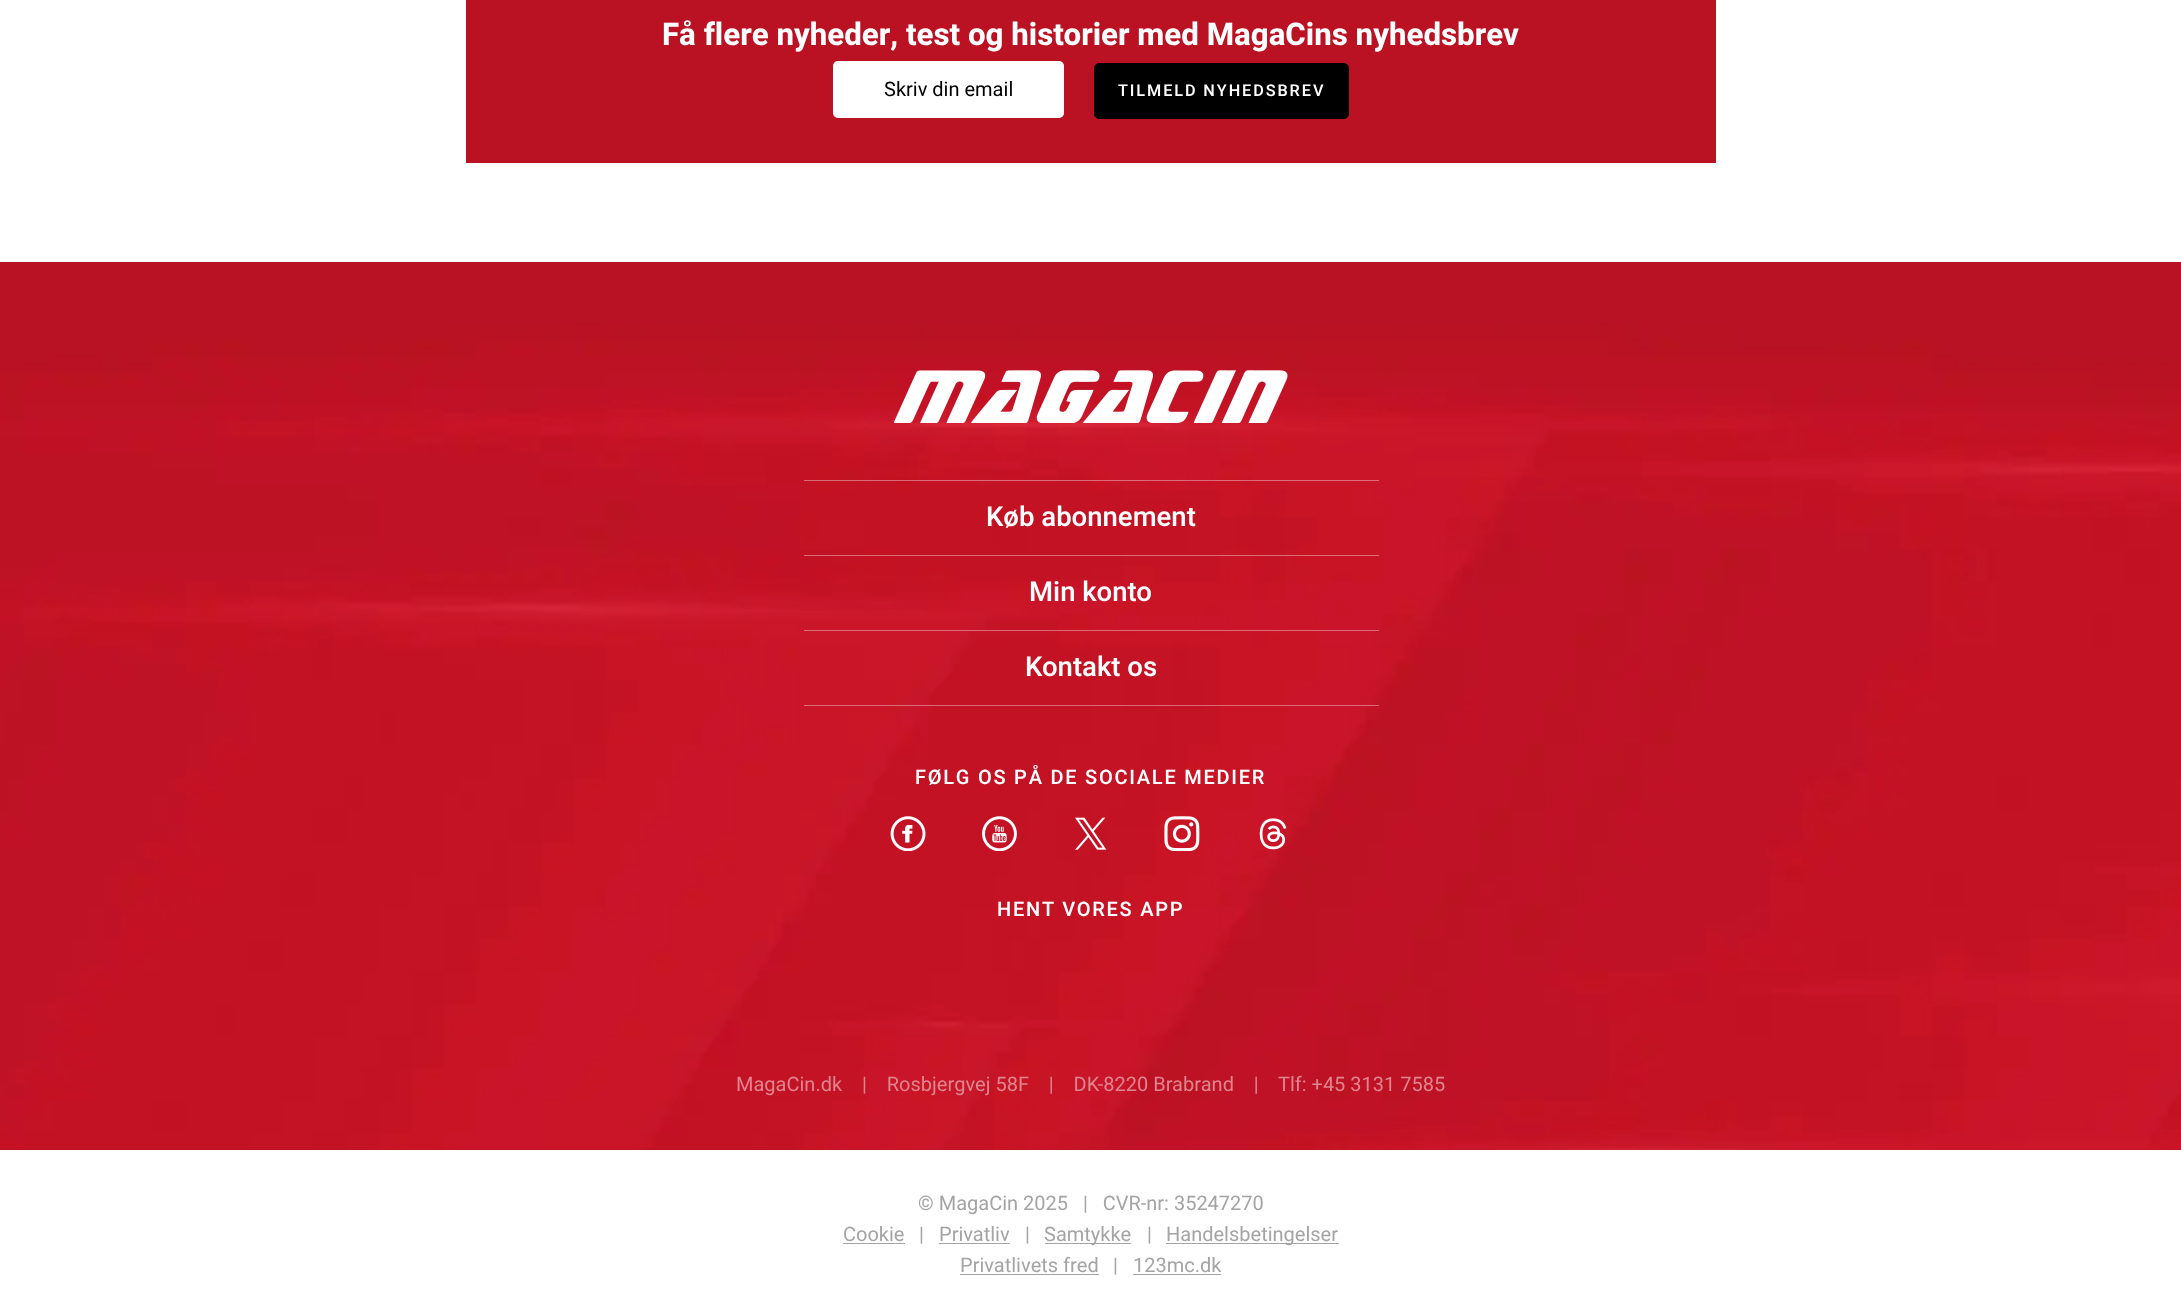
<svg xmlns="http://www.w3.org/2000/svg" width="2181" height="1302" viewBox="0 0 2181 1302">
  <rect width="100%" height="100%" fill="rgb(255,255,255)"/>
  <rect x="466" y="0" width="1250" height="163" fill="rgb(186,18,35)"/>
  <text x="662" y="45" font-family="Heebo" font-size="31.25" font-weight="bold" fill="rgb(255,255,255)">Få flere nyheder, test og historier med MagaCins nyhedsbrev</text>
  <rect x="833" y="61" width="231" height="57" rx="5" fill="rgb(255,255,255)"/>
  <text x="884" y="96" font-family="Heebo" font-size="20" fill="rgb(0,0,0)">Skriv din email</text>
  <rect x="1094.5" y="63.5" width="254" height="55" rx="4.5" fill="rgb(0,0,0)" stroke="rgb(0,0,0)"/>
  <text x="1118" y="96" font-family="Heebo" font-size="16.25" font-weight="500" letter-spacing="1.9" fill="rgb(255,255,255)">TILMELD NYHEDSBREV</text>
  <image x="0" y="262" width="2181" height="888" href="pic1.png"/>
  <image x="894" y="370" width="394" height="53" href="pic2.png"/>
  <rect x="804" y="480" width="575" height="1" fill="rgba(255,255,255,0.38)"/>
  <rect x="804" y="555" width="575" height="1" fill="rgba(255,255,255,0.38)"/>
  <text x="986" y="526" font-family="Heebo" font-size="27.5" font-weight="500" fill="rgb(255,255,255)">Køb abonnement</text>
  <rect x="804" y="630" width="575" height="1" fill="rgba(255,255,255,0.38)"/>
  <text x="1029" y="601" font-family="Heebo" font-size="27.5" font-weight="500" fill="rgb(255,255,255)">Min konto</text>
  <rect x="804" y="705" width="575" height="1" fill="rgba(255,255,255,0.38)"/>
  <text x="1025" y="676" font-family="Heebo" font-size="27.5" font-weight="500" fill="rgb(255,255,255)">Kontakt os</text>
  <text x="915" y="784" font-family="Heebo" font-size="20" font-weight="500" letter-spacing="1.75" fill="rgb(255,255,255)">FØLG OS PÅ DE SOCIALE MEDIER</text>
  <image x="890" y="816" width="36" height="35" href="pic3.png"/>
  <image x="982" y="816" width="35" height="35" href="pic4.png"/>
  <image x="1075" y="817" width="32" height="33" href="pic5.png"/>
  <image x="1164" y="816" width="36" height="35" href="pic6.png"/>
  <image x="1259" y="818" width="28" height="32" href="pic7.png"/>
  <text x="997" y="916" font-family="Heebo" font-size="20" font-weight="500" letter-spacing="1.75" fill="rgb(255,255,255)">HENT VORES APP</text>
  <text x="736" y="1091" font-family="Heebo" font-size="20" fill="rgb(224,132,142)" xml:space="preserve">MagaCin.dk    |    Rosbjergvej 58F    |    DK-8220 Brabrand    |    Tlf: +45 3131 7585</text>
  <g font-family="Heebo" font-size="20" fill="rgb(164,164,164)">
    <text x="918" y="1210" xml:space="preserve">© MagaCin 2025   |   CVR-nr: 35247270</text>
    <text x="843" y="1241">Cookie</text>
  </g>
  <rect x="843" y="1243" width="62" height="1" fill="rgb(164,164,164)"/>
  <g font-family="Heebo" font-size="20" fill="rgb(164,164,164)">
    <text x="919" y="1241">|</text>
    <text x="939" y="1241">Privatliv</text>
  </g>
  <rect x="939" y="1243" width="71" height="1" fill="rgb(164,164,164)"/>
  <text x="1025" y="1241" font-family="Heebo" font-size="20" fill="rgb(164,164,164)">|</text>
  <rect x="1045" y="1243" width="86" height="1" fill="rgb(164,164,164)"/>
  <g font-family="Heebo" font-size="20" fill="rgb(164,164,164)">
    <text x="1044" y="1241">Samtykke</text>
    <text x="1147" y="1241">|</text>
  </g>
  <rect x="1166" y="1243" width="173" height="1" fill="rgb(164,164,164)"/>
  <g font-family="Heebo" font-size="20" fill="rgb(164,164,164)">
    <text x="1166" y="1241">Handelsbetingelser</text>
    <text x="960" y="1272">Privatlivets fred</text>
  </g>
  <rect x="960" y="1274" width="139" height="1" fill="rgb(164,164,164)"/>
  <g font-family="Heebo" font-size="20" fill="rgb(164,164,164)">
    <text x="1113" y="1272">|</text>
    <text x="1133" y="1272">123mc.dk</text>
  </g>
  <rect x="1133" y="1274" width="88" height="1" fill="rgb(164,164,164)"/>
</svg>
